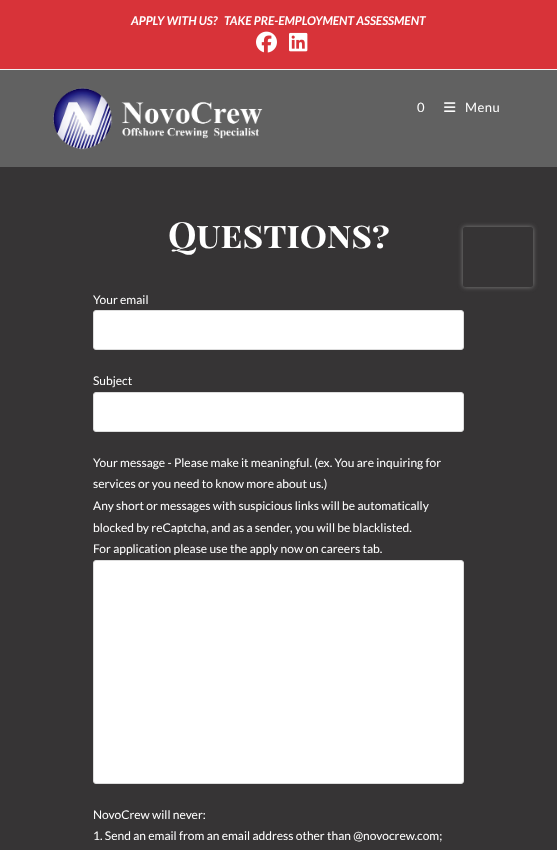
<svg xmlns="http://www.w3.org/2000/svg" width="557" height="850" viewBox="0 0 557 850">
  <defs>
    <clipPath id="clip1"><path d="M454 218H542V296H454ZM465 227H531C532 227 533 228 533 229V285C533 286 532 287 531 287H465C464 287 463 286 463 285V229C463 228 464 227 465 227Z" clip-rule="evenodd"/></clipPath>
  </defs>
  <rect width="100%" height="100%" fill="rgb(54,52,53)"/>
  <rect x="0" y="0" width="557" height="69" fill="rgb(216,51,57)"/>
  <rect x="0" y="69" width="557" height="1" fill="rgb(241,241,241)"/>
  <g font-family="Lato" font-size="12" font-weight="bold" font-style="italic" fill="rgb(255,255,255)">
    <text x="131" y="25">APPLY WITH US?</text>
    <text x="224" y="25">TAKE PRE-EMPLOYMENT ASSESSMENT</text>
  </g>
  <image x="256" y="31" width="21" height="22" href="pic1.png"/>
  <image x="289" y="32" width="19" height="20" href="pic2.png"/>
  <rect x="0" y="70" width="557" height="97" fill="rgb(97,97,97)"/>
  <image x="53" y="87" width="210" height="63" href="pic3.png"/>
  <text x="417" y="112" font-family="Lato" font-size="13" letter-spacing="0.5" fill="rgb(255,255,255)">0</text>
  <image x="444" y="102" width="12" height="10" href="pic4.png"/>
  <text x="465" y="112" font-family="Lato" font-size="13" letter-spacing="0.5" fill="rgb(255,255,255)">Menu</text>
  <text x="168" y="248" font-family="Playfair Display SC" font-size="36" font-weight="bold" fill="rgb(255,255,255)">Questions?</text>
  <text x="93" y="304" font-family="Lato" font-size="12" fill="rgb(255,255,255)">Your email</text>
  <rect x="93.5" y="310.5" width="370" height="39" rx="2.5" fill="rgb(255,255,255)" stroke="rgb(221,221,221)"/>
  <text x="93" y="385" font-family="Lato" font-size="12" fill="rgb(255,255,255)">Subject</text>
  <rect x="93.5" y="392.5" width="370" height="39" rx="2.5" fill="rgb(255,255,255)" stroke="rgb(221,221,221)"/>
  <g font-family="Lato" font-size="12" fill="rgb(255,255,255)">
    <text>
      <tspan x="93" y="467">Your message - Please make it meaningful. (ex. You are inquiring for</tspan>
      <tspan x="93" y="488">services or you need to know more about us.)</tspan>
      <tspan x="93" y="510">Any short or messages with suspicious links will be automatically</tspan>
      <tspan x="93" y="532">blocked by reCaptcha, and as a sender, you will be blacklisted.</tspan>
      <tspan x="93" y="553">For application please use the apply now on careers tab.</tspan>
    </text>
  </g>
  <rect x="93.5" y="560.5" width="370" height="223" rx="2.5" fill="rgb(255,255,255)" stroke="rgb(221,221,221)"/>
  <g font-family="Lato" font-size="12" fill="rgb(255,255,255)">
    <text>
      <tspan x="93" y="819">NovoCrew will never:</tspan>
      <tspan x="93" y="840">1. Send an email from an email address other than @novocrew.com;</tspan>
    </text>
  </g>
  <g clip-path="url(#clip1)">
    <rect x="463" y="227" width="70" height="60" rx="2" fill="rgb(128,128,128)" filter="blur(2.5px)"/>
  </g>
</svg>
